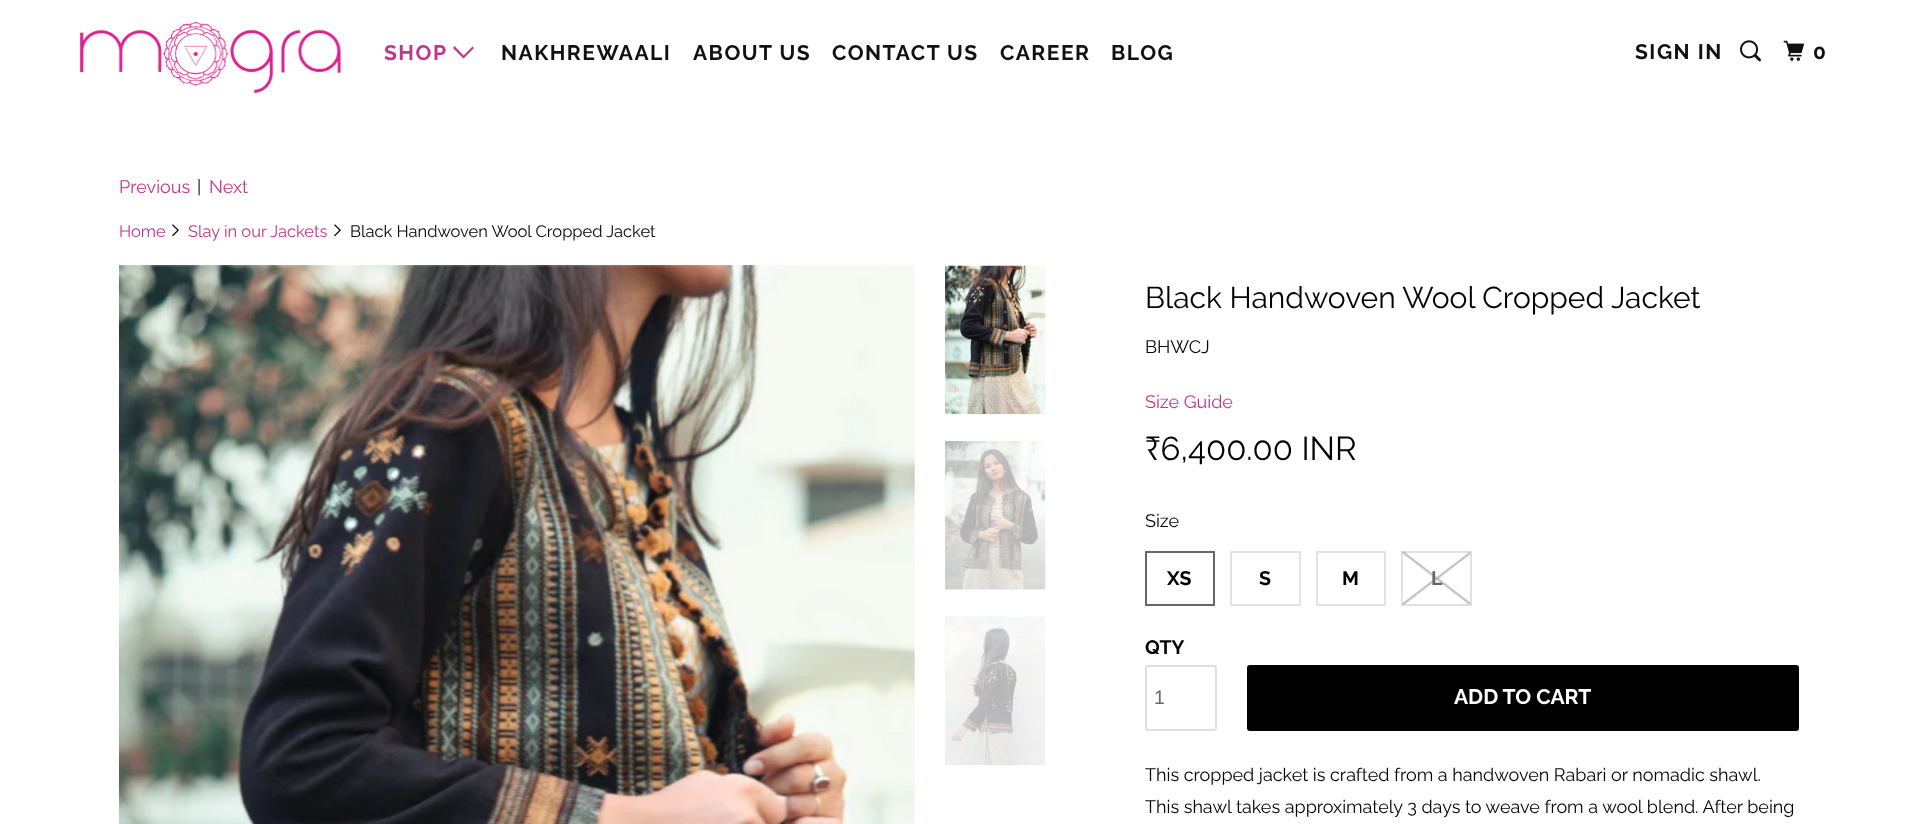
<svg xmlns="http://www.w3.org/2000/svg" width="1917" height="824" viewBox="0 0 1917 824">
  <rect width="100%" height="100%" fill="rgb(255,255,255)"/>
  <image x="79" y="21" width="262" height="73" href="pic1.png"/>
  <text x="384" y="60" font-family="Raleway" font-size="21" font-weight="bold" letter-spacing="1.5" fill="rgb(191,54,139)">SHOP</text>
  <path d="M458 53L453 48L454.5 46L463.5 55.5L472.5 46.5L474 48L463.5 58.5Z" fill="rgb(191,54,139)"/>
  <g font-family="Raleway" font-size="21" font-weight="bold" letter-spacing="1.5" fill="rgb(17,17,17)">
    <text x="501" y="60">NAKHREWAALI</text>
    <text x="693" y="60">ABOUT US</text>
    <text x="832" y="60">CONTACT US</text>
    <text x="1000" y="60">CAREER</text>
    <text x="1111" y="60">BLOG</text>
    <text x="1635" y="59">SIGN IN</text>
  </g>
  <image x="1740" y="40" width="21" height="22" href="pic2.png"/>
  <image x="1783" y="40" width="21" height="21" href="pic3.png"/>
  <text x="1813" y="59" font-family="Raleway" font-size="21" font-weight="bold" letter-spacing="1.5" fill="rgb(17,17,17)">0</text>
  <text x="119" y="193" font-family="Raleway" font-size="18" fill="rgb(191,54,139)">Previous</text>
  <text x="197" y="193" font-family="Raleway" font-size="18" fill="rgb(0,0,0)">|</text>
  <text x="209" y="193" font-family="Raleway" font-size="18" fill="rgb(191,54,139)">Next</text>
  <text x="119" y="237" font-family="Raleway" font-size="16.5" fill="rgb(191,54,139)">Home</text>
  <image x="172" y="224" width="7" height="13" href="pic4.png"/>
  <text x="188" y="237" font-family="Raleway" font-size="16.5" fill="rgb(191,54,139)">Slay in our Jackets</text>
  <image x="334" y="224" width="7" height="13" href="pic4.png"/>
  <text x="350" y="237" font-family="Raleway" font-size="16.5" fill="rgb(0,0,0)">Black Handwoven Wool Cropped Jacket</text>
  <image x="119" y="265" width="796" height="559" href="pic5.png"/>
  <image x="945" y="265" width="101" height="149" href="pic6.png"/>
  <image x="945" y="441" width="101" height="149" href="pic7.png"/>
  <image x="945" y="616" width="101" height="149" href="pic8.png"/>
  <text x="1145" y="308" font-family="Raleway" font-size="30" fill="rgb(0,0,0)">Black Handwoven Wool Cropped Jacket</text>
  <text x="1145" y="353" font-family="Raleway" font-size="18" fill="rgb(0,0,0)">BHWCJ</text>
  <text x="1145" y="408" font-family="Raleway" font-size="18" fill="rgb(191,54,139)">Size Guide</text>
  <text x="1145" y="460" font-family="Raleway" font-size="33" fill="rgb(0,0,0)">₹6,400.00 INR</text>
  <text x="1145" y="527" font-family="Raleway" font-size="18" fill="rgb(0,0,0)">Size</text>
  <rect x="1146" y="552" width="68" height="53" fill="none" stroke="rgb(102,102,102)" stroke-width="2"/>
  <text x="1167" y="585" font-family="Raleway" font-size="19.5" font-weight="bold" fill="rgb(0,0,0)">XS</text>
  <rect x="1231" y="552" width="69" height="53" fill="none" stroke="rgb(226,226,226)" stroke-width="2"/>
  <text x="1259" y="585" font-family="Raleway" font-size="19.5" font-weight="bold" fill="rgb(0,0,0)">S</text>
  <rect x="1317" y="552" width="68" height="53" fill="none" stroke="rgb(226,226,226)" stroke-width="2"/>
  <text x="1342" y="585" font-family="Raleway" font-size="19.5" font-weight="bold" fill="rgb(0,0,0)">M</text>
  <rect x="1402" y="552" width="69" height="53" fill="none" stroke="rgb(226,226,226)" stroke-width="2"/>
  <text x="1431" y="585" font-family="Raleway" font-size="19.5" font-weight="bold" fill="rgb(102,102,102)">L</text>
  <image x="1402" y="551" width="69" height="54" href="pic9.png"/>
  <text x="1145" y="654" font-family="Raleway" font-size="19.5" font-weight="bold" fill="rgb(0,0,0)">QTY</text>
  <rect x="1146" y="666" width="70" height="64" rx="2" fill="none" stroke="rgb(223,223,223)" stroke-width="2"/>
  <text x="1154" y="704" font-family="Liberation Sans" font-size="19.5" fill="rgb(95,106,125)">1</text>
  <rect x="1247" y="665" width="552" height="66" rx="3" fill="rgb(0,0,0)"/>
  <text x="1454" y="704" font-family="Raleway" font-size="21" font-weight="bold" fill="rgb(255,255,255)">ADD TO CART</text>
  <g font-family="Raleway" font-size="18" fill="rgb(0,0,0)">
    <text>
      <tspan x="1145" y="781">This cropped jacket is crafted from a handwoven Rabari or nomadic shawl.</tspan>
      <tspan x="1145" y="813">This shawl takes approximately 3 days to weave from a wool blend. After being</tspan>
    </text>
  </g>
</svg>
